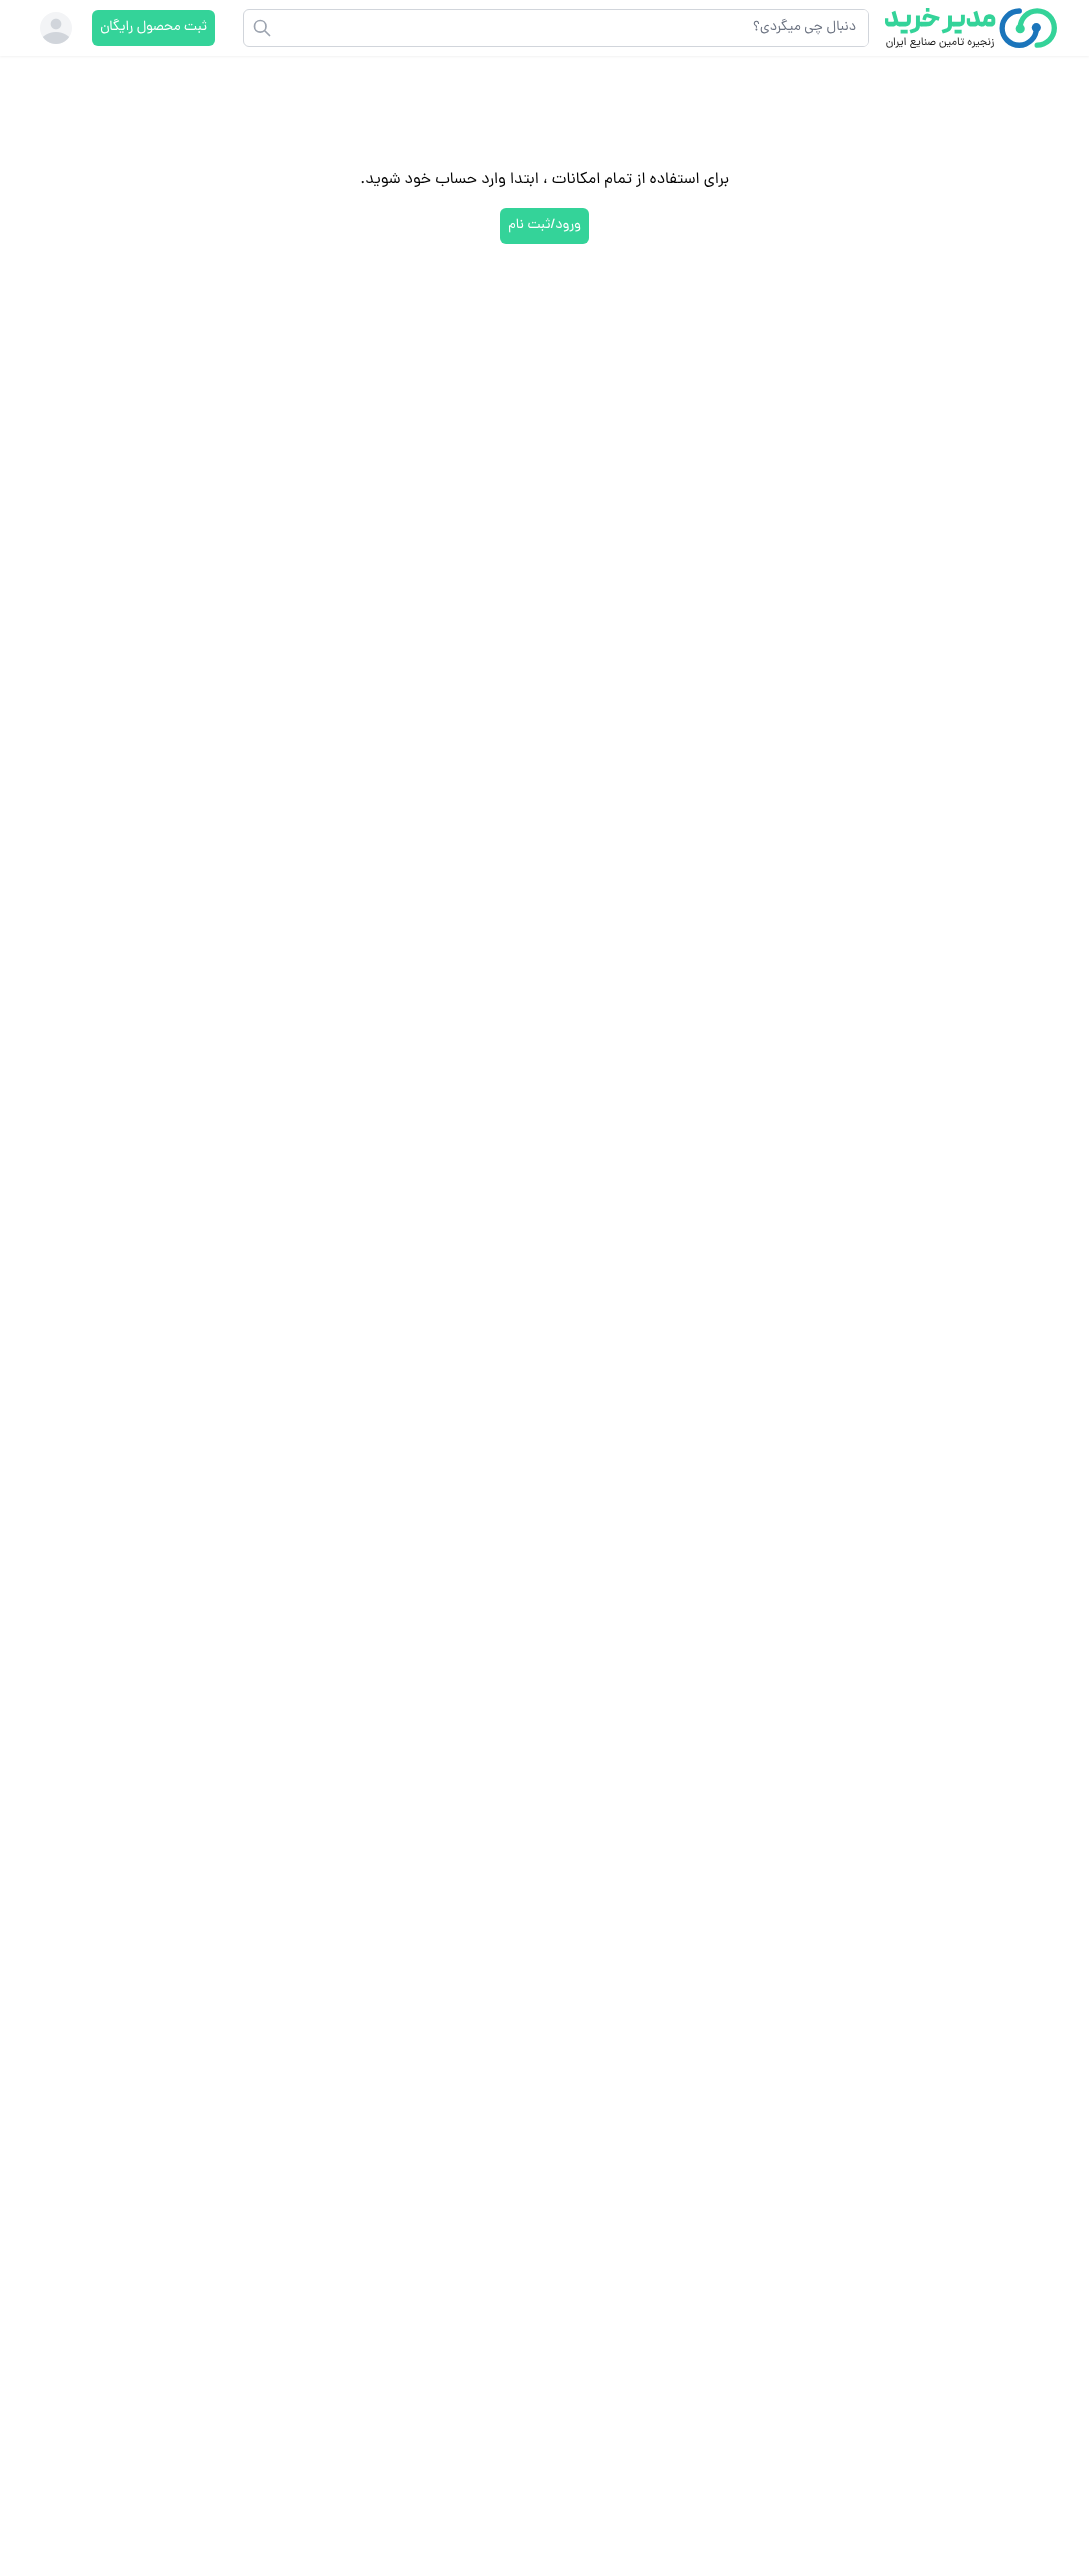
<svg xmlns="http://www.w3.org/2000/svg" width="1089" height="2569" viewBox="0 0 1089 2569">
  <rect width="100%" height="100%" fill="rgb(255,255,255)"/>
  <rect x="0" y="1" width="1089" height="56" fill="rgba(0,0,0,0.05)" filter="blur(1px)"/>
  <rect x="0" y="0" width="1089" height="56" fill="rgb(255,255,255)"/>
  <image x="885" y="8" width="172" height="40" href="pic1.png"/>
  <rect x="243.5" y="9.5" width="625" height="37" rx="5.5" fill="none" stroke="rgb(209,213,219)"/>
  <path d="M272 10H863C866 10 868 12 868 15V41C868 44 866 46 863 46H272Z" fill="rgb(255,255,255)"/>
  <text x="856" y="30" font-family="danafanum" font-size="14" direction="rtl" fill="rgb(107,114,128)">دنبال چی میگردی؟</text>
  <path d="M269.5 35.5L264.5 30.5M266 26.5C266 34 254.5 34 254.5 26.5C254.5 18.5 266 18.5 266 26.5Z" fill="none" stroke="rgb(156,163,175)" stroke-width="1.7" stroke-linecap="round" stroke-linejoin="round"/>
  <rect x="92" y="10" width="123" height="36" rx="6" fill="rgb(52,211,153)"/>
  <text x="207" y="30" font-family="danafanum" font-size="14" direction="rtl" fill="rgb(255,255,255)">ثبت محصول رایگان</text>
  <circle cx="56" cy="28" r="16" fill="rgb(243,244,246)"/>
  <image x="43" y="18" width="26" height="26" href="pic2.png"/>
  <text x="729" y="183" font-family="danafanum" font-size="16" direction="rtl" fill="rgb(0,0,0)">برای استفاده از تمام امکانات ، ابتدا وارد حساب خود شوید.</text>
  <rect x="500" y="208" width="89" height="36" rx="6" fill="rgb(52,211,153)"/>
  <text x="581" y="228" font-family="danafanum" font-size="14" direction="rtl" fill="rgb(255,255,255)">ورود/ثبت نام</text>
</svg>
